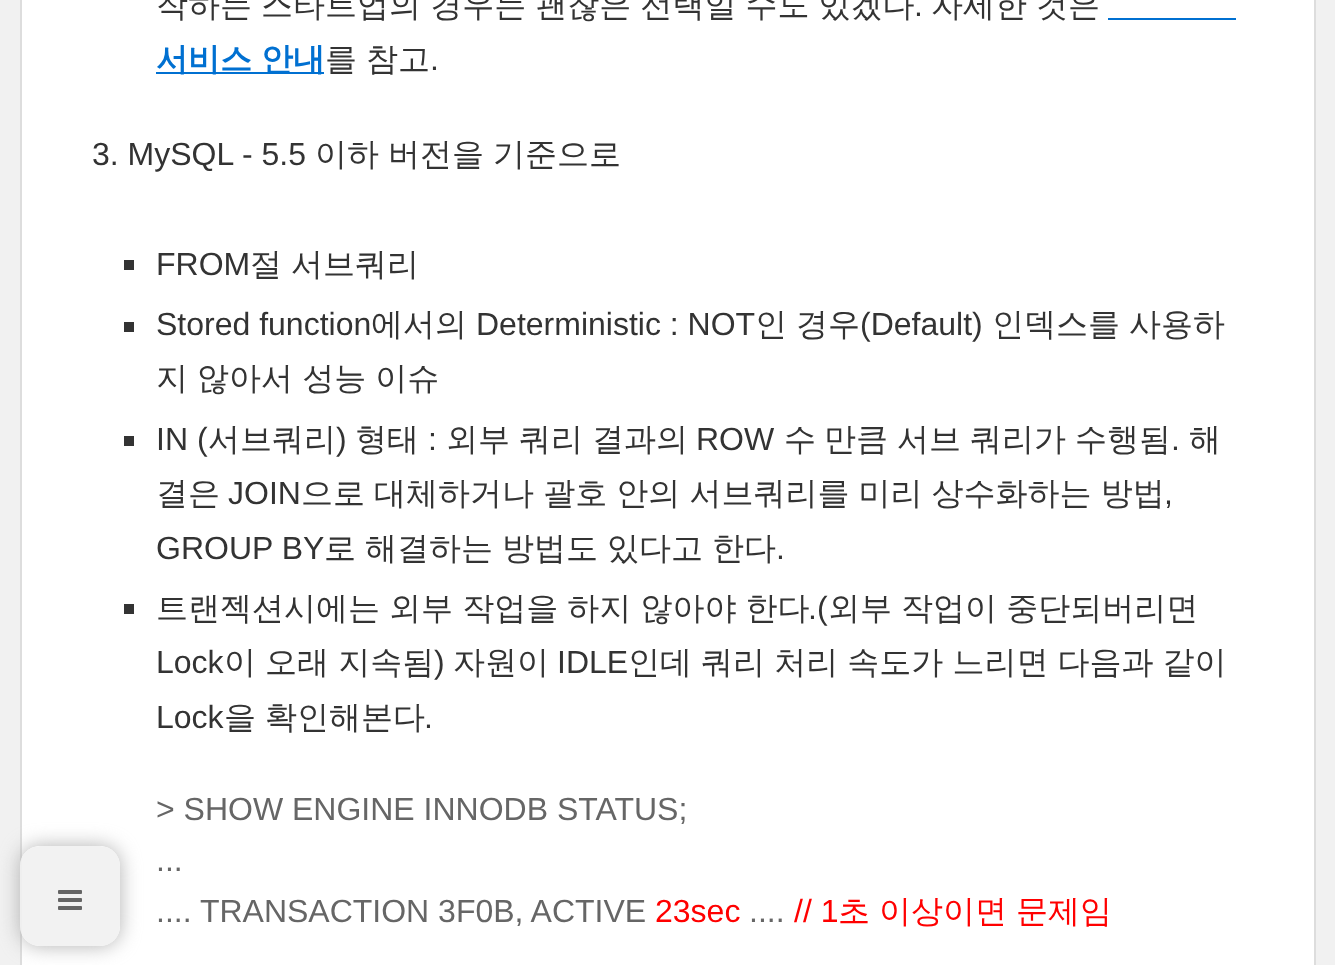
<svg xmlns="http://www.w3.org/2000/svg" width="1335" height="965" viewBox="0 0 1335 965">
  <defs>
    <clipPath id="clip1"><path d="M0 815H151V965H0ZM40 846H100C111 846 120 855 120 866V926C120 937 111 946 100 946H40C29 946 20 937 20 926V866C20 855 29 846 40 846Z" clip-rule="evenodd"/></clipPath>
  </defs>
  <rect width="100%" height="100%" fill="rgb(241,241,241)"/>
  <rect x="21" y="-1" width="1294" height="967" fill="rgb(255,255,255)" stroke="rgb(221,221,221)" stroke-width="2"/>
  <g clip-path="url(#clip1)">
    <rect x="20" y="846" width="100" height="100" rx="20" fill="rgba(170,170,170,0.9)" filter="blur(10px)"/>
  </g>
  <rect x="20" y="846" width="100" height="100" rx="20" fill="rgba(241,241,241,0.9)"/>
  <image x="58" y="890" width="24" height="20" href="pic1.png"/>
  <text x="156" y="16" word-spacing="-0.5" font-family="WenQuanYi Zen Hei" font-size="32" font-weight="500" fill="rgb(51,51,51)">작하는 스타트업의 경우는 괜찮은 선택일 수도 있겠다</text>
  <text x="914" y="16" font-family="Liberation Sans" font-size="32" fill="rgb(51,51,51)">.</text>
  <text x="931" y="16" word-spacing="-0.5" font-family="WenQuanYi Zen Hei" font-size="32" font-weight="500" fill="rgb(51,51,51)">자세한 것은</text>
  <rect x="156" y="72" width="168" height="2" fill="rgb(0,112,209)"/>
  <text x="156" y="70" word-spacing="-0.5" font-family="WenQuanYi Zen Hei" font-size="32" font-weight="bold" fill="rgb(0,112,209)">서비스 안내</text>
  <rect x="1108" y="18" width="128" height="2" fill="rgb(0,112,209)"/>
  <text x="325" y="70" word-spacing="-0.5" font-family="WenQuanYi Zen Hei" font-size="32" font-weight="500" fill="rgb(51,51,51)">를 참고</text>
  <g font-family="Liberation Sans" font-size="32" fill="rgb(51,51,51)">
    <text x="430" y="70">.</text>
    <text x="92" y="165">3. MySQL - 5.5</text>
  </g>
  <g font-family="WenQuanYi Zen Hei" font-size="32" font-weight="500" fill="rgb(51,51,51)">
    <text x="315" y="165">이하</text>
    <text x="388" y="165">버전을</text>
    <text x="493" y="165">기준으로</text>
  </g>
  <rect x="124" y="260" width="10" height="10" fill="rgb(51,51,51)"/>
  <text x="156" y="275" font-family="Liberation Sans" font-size="32" fill="rgb(51,51,51)">FROM</text>
  <text x="250" y="275" word-spacing="-0.5" font-family="WenQuanYi Zen Hei" font-size="32" font-weight="500" fill="rgb(51,51,51)">절 서브쿼리</text>
  <rect x="124" y="322" width="10" height="10" fill="rgb(51,51,51)"/>
  <text x="156" y="335" font-family="Liberation Sans" font-size="32" fill="rgb(51,51,51)">Stored function</text>
  <text x="371" y="335" font-family="WenQuanYi Zen Hei" font-size="32" font-weight="500" fill="rgb(51,51,51)">에서의</text>
  <text x="476" y="335" font-family="Liberation Sans" font-size="32" fill="rgb(51,51,51)">Deterministic : NOT</text>
  <g font-family="WenQuanYi Zen Hei" font-size="32" font-weight="500" fill="rgb(51,51,51)">
    <text x="755" y="335">인</text>
    <text x="796" y="335">경우</text>
  </g>
  <text x="860" y="335" font-family="Liberation Sans" font-size="32" fill="rgb(51,51,51)">(Default)</text>
  <g font-family="WenQuanYi Zen Hei" font-size="32" font-weight="500" fill="rgb(51,51,51)">
    <text x="992" y="335">인덱스를</text>
    <text x="1129" y="335">사용하</text>
    <text x="156" y="389" word-spacing="-0.5">지 않아서 성능 이슈</text>
  </g>
  <rect x="124" y="436" width="10" height="10" fill="rgb(51,51,51)"/>
  <text x="156" y="450" font-family="Liberation Sans" font-size="32" fill="rgb(51,51,51)">IN (</text>
  <text x="208" y="450" font-family="WenQuanYi Zen Hei" font-size="32" font-weight="500" fill="rgb(51,51,51)">서브쿼리</text>
  <text x="336" y="450" font-family="Liberation Sans" font-size="32" fill="rgb(51,51,51)">)</text>
  <text x="355" y="450" font-family="WenQuanYi Zen Hei" font-size="32" font-weight="500" fill="rgb(51,51,51)">형태</text>
  <text x="428" y="450" font-family="Liberation Sans" font-size="32" fill="rgb(51,51,51)">:</text>
  <g font-family="WenQuanYi Zen Hei" font-size="32" font-weight="500" fill="rgb(51,51,51)">
    <text x="446" y="450">외부</text>
    <text x="519" y="450">쿼리</text>
    <text x="592" y="450">결과의</text>
  </g>
  <text x="696" y="450" font-family="Liberation Sans" font-size="32" fill="rgb(51,51,51)">ROW</text>
  <g font-family="WenQuanYi Zen Hei" font-size="32" font-weight="500" fill="rgb(51,51,51)">
    <text x="784" y="450">수</text>
    <text x="824" y="450">만큼</text>
    <text x="897" y="450">서브</text>
    <text x="970" y="450">쿼리가</text>
    <text x="1075" y="450">수행됨</text>
    <text x="1189" y="450">해</text>
  </g>
  <text x="1171" y="450" font-family="Liberation Sans" font-size="32" fill="rgb(51,51,51)">.</text>
  <text x="156" y="504" font-family="WenQuanYi Zen Hei" font-size="32" font-weight="500" fill="rgb(51,51,51)">결은</text>
  <text x="228" y="504" font-family="Liberation Sans" font-size="32" fill="rgb(51,51,51)">JOIN</text>
  <text x="301" y="504" word-spacing="-0.5" font-family="WenQuanYi Zen Hei" font-size="32" font-weight="500" fill="rgb(51,51,51)">으로 대체하거나 괄호 안의 서브쿼리를 미리 상수화하는 방법</text>
  <g font-family="Liberation Sans" font-size="32" fill="rgb(51,51,51)">
    <text x="1164" y="504">,</text>
    <text x="156" y="559">GROUP BY</text>
  </g>
  <g font-family="WenQuanYi Zen Hei" font-size="32" font-weight="500" fill="rgb(51,51,51)">
    <text x="324" y="559">로</text>
    <text x="365" y="559">해결하는</text>
    <text x="502" y="559">방법도</text>
    <text x="607" y="559">있다고</text>
    <text x="712" y="559">한다</text>
  </g>
  <text x="776" y="559" font-family="Liberation Sans" font-size="32" fill="rgb(51,51,51)">.</text>
  <rect x="124" y="604" width="10" height="10" fill="rgb(51,51,51)"/>
  <text x="156" y="619" word-spacing="-0.5" font-family="WenQuanYi Zen Hei" font-size="32" font-weight="500" fill="rgb(51,51,51)">트랜젝션시에는 외부 작업을 하지 않아야 한다</text>
  <text x="808" y="619" font-family="Liberation Sans" font-size="32" fill="rgb(51,51,51)">.(</text>
  <text x="828" y="619" word-spacing="-0.5" font-family="WenQuanYi Zen Hei" font-size="32" font-weight="500" fill="rgb(51,51,51)">외부 작업이 중단되버리면</text>
  <text x="156" y="673" font-family="Liberation Sans" font-size="32" fill="rgb(51,51,51)">Lock</text>
  <text x="224" y="673" word-spacing="-0.5" font-family="WenQuanYi Zen Hei" font-size="32" font-weight="500" fill="rgb(51,51,51)">이 오래 지속됨</text>
  <text x="434" y="673" font-family="Liberation Sans" font-size="32" fill="rgb(51,51,51)">)</text>
  <text x="453" y="673" font-family="WenQuanYi Zen Hei" font-size="32" font-weight="500" fill="rgb(51,51,51)">자원이</text>
  <text x="557" y="673" font-family="Liberation Sans" font-size="32" fill="rgb(51,51,51)">IDLE</text>
  <text x="628" y="673" word-spacing="-0.5" font-family="WenQuanYi Zen Hei" font-size="32" font-weight="500" fill="rgb(51,51,51)">인데 쿼리 처리 속도가 느리면 다음과 같이</text>
  <text x="156" y="728" font-family="Liberation Sans" font-size="32" fill="rgb(51,51,51)">Lock</text>
  <text x="224" y="728" word-spacing="-0.5" font-family="WenQuanYi Zen Hei" font-size="32" font-weight="500" fill="rgb(51,51,51)">을 확인해본다</text>
  <text x="424" y="728" font-family="Liberation Sans" font-size="32" fill="rgb(51,51,51)">.</text>
  <g font-family="Liberation Sans" font-size="32" fill="rgb(102,102,102)">
    <text>
      <tspan x="156" y="820">&gt; SHOW ENGINE INNODB STATUS;</tspan>
      <tspan x="156" y="871">...</tspan>
      <tspan x="156" y="922">.... TRANSACTION 3F0B, ACTIVE</tspan>
    </text>
  </g>
  <text x="655" y="922" font-family="Liberation Sans" font-size="32" fill="rgb(255,0,0)">23sec</text>
  <text x="749" y="922" font-family="Liberation Sans" font-size="32" fill="rgb(102,102,102)">....</text>
  <text x="794" y="922" font-family="Liberation Sans" font-size="32" fill="rgb(255,0,0)">// 1</text>
  <g font-family="WenQuanYi Zen Hei" font-size="32" font-weight="500" fill="rgb(255,0,0)">
    <text x="838" y="922">초</text>
    <text x="879" y="922">이상이면</text>
    <text x="1016" y="922">문제임</text>
  </g>
</svg>
